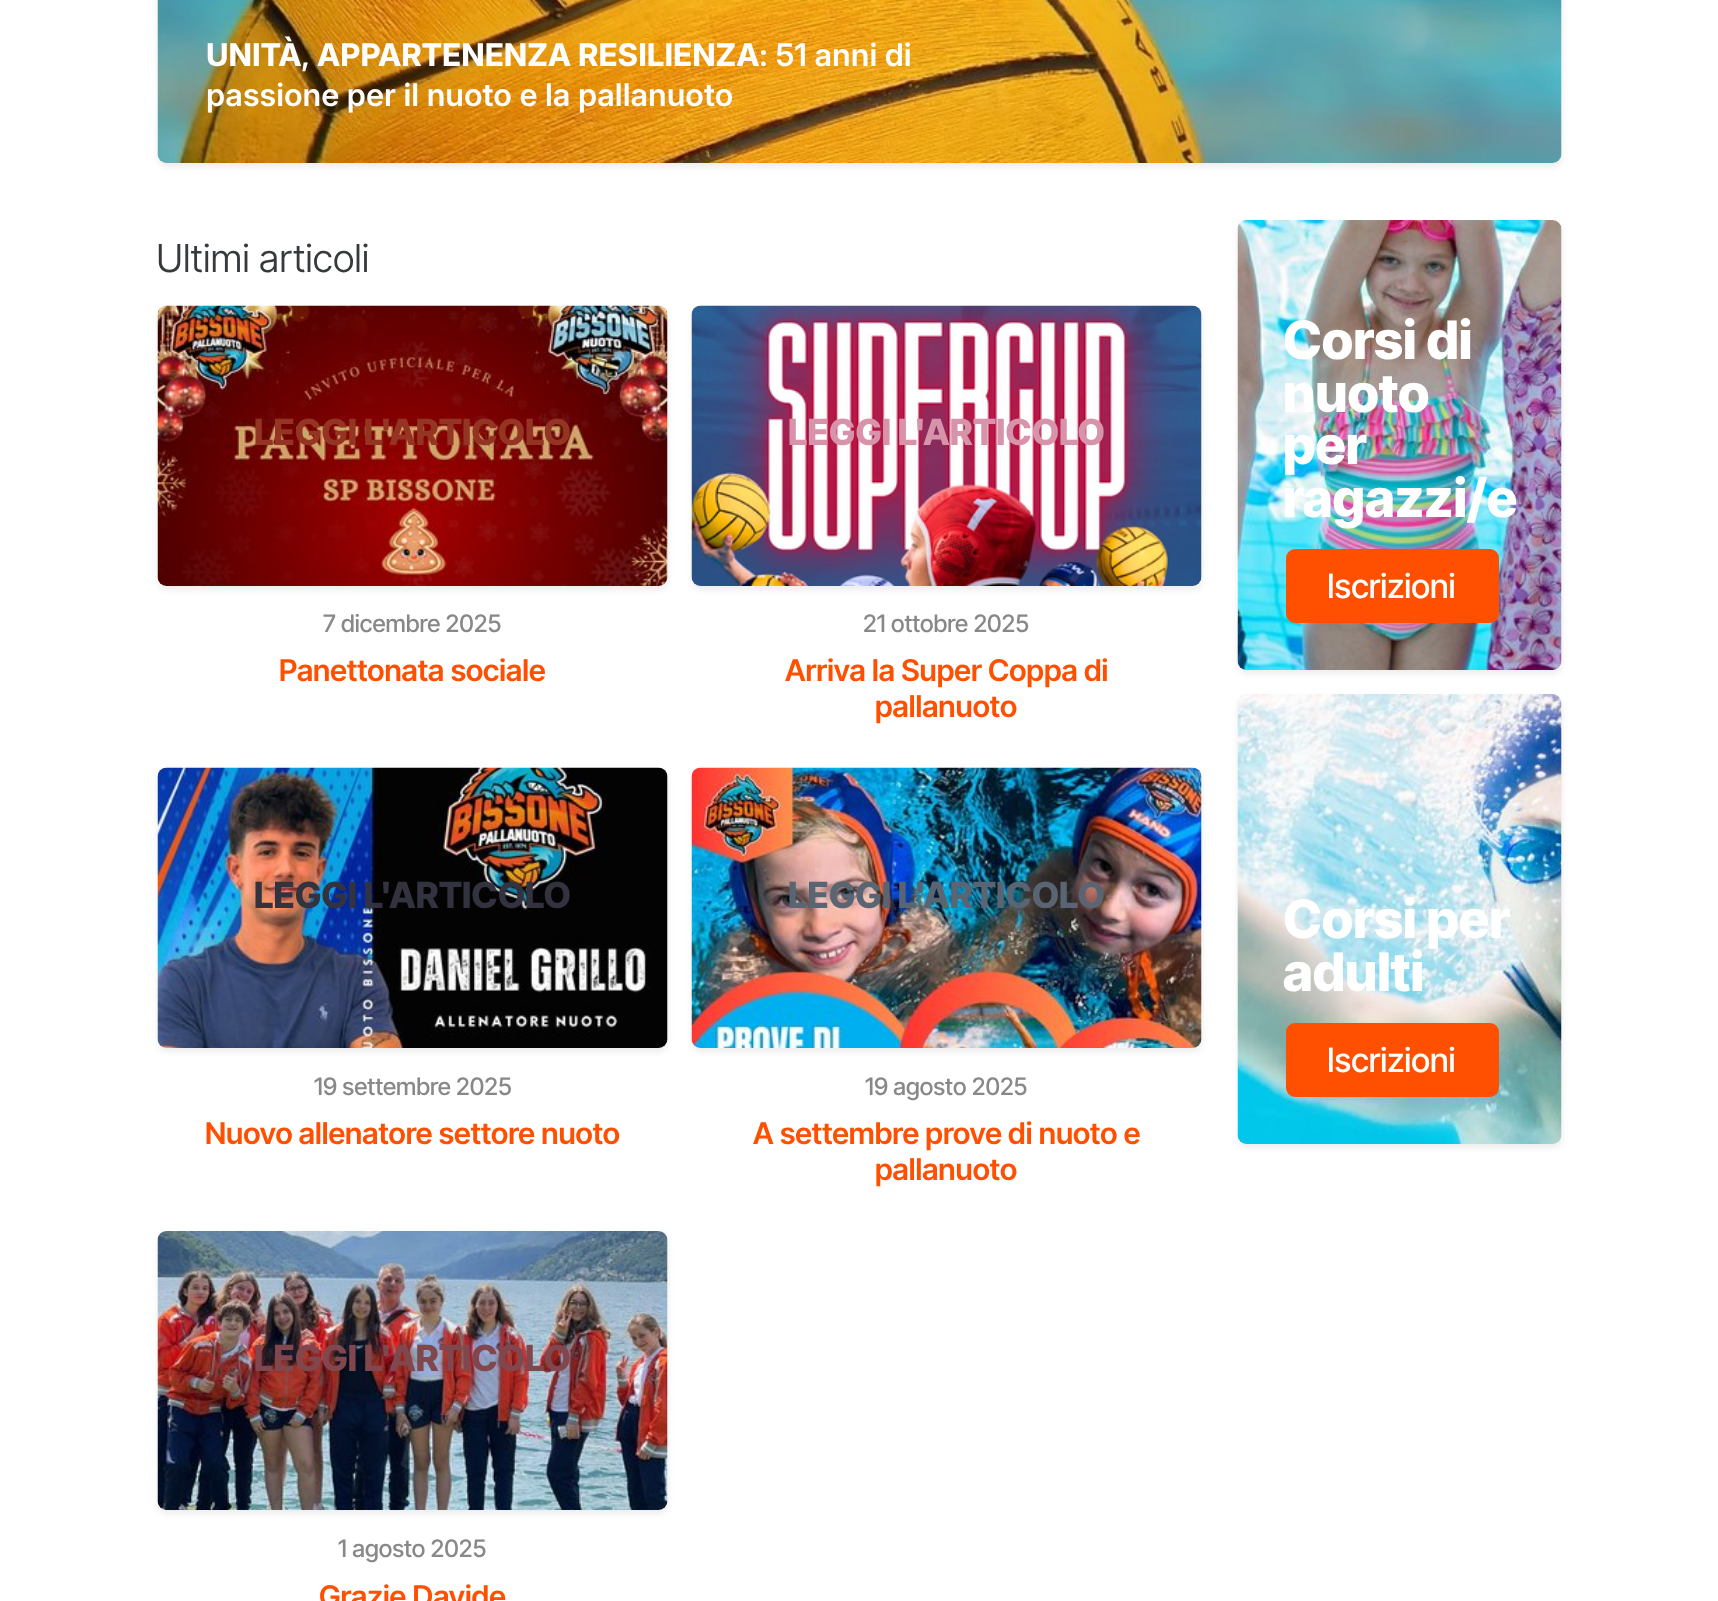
<svg xmlns="http://www.w3.org/2000/svg" width="1718" height="1601" viewBox="0 0 1718 1601">
  <rect width="100%" height="100%" fill="rgb(255,255,255)"/>
  <rect x="158" y="-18" width="1404" height="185" rx="9" fill="rgba(0,0,0,0.07)" filter="blur(3px)"/>
  <image x="157" y="0" width="1405" height="163" href="pic1.png"/>
  <text x="206" y="66" font-family="Inter" font-size="31.25" font-weight="bold" fill="rgb(255,255,255)">UNITÀ</text>
  <text x="301" y="66" font-family="Inter" font-size="31.25" font-weight="600" fill="rgb(255,255,255)">,</text>
  <g font-family="Inter" font-size="31.25" font-weight="bold" fill="rgb(255,255,255)">
    <text x="317" y="66">APPARTENENZA</text>
    <text x="578" y="66">RESILIENZA</text>
  </g>
  <g font-family="Inter" font-size="31.25" font-weight="600" fill="rgb(255,255,255)">
    <text x="759" y="66">: 51 anni di</text>
    <text x="206" y="106">passione per il nuoto e la pallanuoto</text>
  </g>
  <text x="156" y="272" font-family="Inter Tight" font-size="38.5" font-weight="300" fill="rgb(55,58,60)">Ultimi articoli</text>
  <rect x="158" y="309" width="510" height="281" rx="9" fill="rgba(0,0,0,0.07)" filter="blur(3px)"/>
  <image x="157" y="305" width="511" height="281" href="pic2.png"/>
  <text x="254" y="445" font-family="Inter Tight" font-size="36" font-weight="800" fill="rgb(148,53,35)">LEGGI L'ARTICOLO</text>
  <text x="323" y="632" font-family="Inter Tight" font-size="24" font-weight="500" fill="rgb(136,136,136)">7 dicembre 2025</text>
  <text x="279" y="681" font-family="Inter Tight" font-size="30" font-weight="600" fill="rgb(254,80,0)">Panettonata sociale</text>
  <rect x="692" y="309" width="510" height="281" rx="9" fill="rgba(0,0,0,0.07)" filter="blur(3px)"/>
  <image x="691" y="305" width="511" height="281" href="pic3.png"/>
  <text x="788" y="445" font-family="Inter Tight" font-size="36" font-weight="800" fill="rgb(215,147,169)">LEGGI L'ARTICOLO</text>
  <text x="863" y="632" font-family="Inter Tight" font-size="24" font-weight="500" fill="rgb(136,136,136)">21 ottobre 2025</text>
  <g font-family="Inter Tight" font-size="30" font-weight="600" fill="rgb(254,80,0)">
    <text x="785" y="681">Arriva la Super Coppa di</text>
    <text x="875" y="717">pallanuoto</text>
  </g>
  <rect x="158" y="771" width="510" height="281" rx="9" fill="rgba(0,0,0,0.07)" filter="blur(3px)"/>
  <image x="157" y="767" width="511" height="281" href="pic4.png"/>
  <text x="254" y="908" font-family="Inter Tight" font-size="36" font-weight="800" fill="rgb(51,50,63)">LEGGI L'ARTICOLO</text>
  <text x="314" y="1095" font-family="Inter Tight" font-size="24" font-weight="500" fill="rgb(136,136,136)">19 settembre 2025</text>
  <text x="205" y="1144" font-family="Inter Tight" font-size="30" font-weight="600" fill="rgb(254,80,0)">Nuovo allenatore settore nuoto</text>
  <rect x="692" y="771" width="510" height="281" rx="9" fill="rgba(0,0,0,0.07)" filter="blur(3px)"/>
  <image x="691" y="767" width="511" height="281" href="pic5.png"/>
  <text x="788" y="908" font-family="Inter Tight" font-size="36" font-weight="800" fill="rgb(89,101,114)">LEGGI L'ARTICOLO</text>
  <text x="865" y="1095" font-family="Inter Tight" font-size="24" font-weight="500" fill="rgb(136,136,136)">19 agosto 2025</text>
  <g font-family="Inter Tight" font-size="30" font-weight="600" fill="rgb(254,80,0)">
    <text x="753" y="1144">A settembre prove di nuoto e</text>
    <text x="875" y="1180">pallanuoto</text>
  </g>
  <rect x="158" y="1235" width="510" height="279" rx="9" fill="rgba(0,0,0,0.07)" filter="blur(3px)"/>
  <image x="157" y="1231" width="511" height="279" href="pic6.png"/>
  <text x="254" y="1371" font-family="Inter Tight" font-size="36" font-weight="800" fill="rgb(129,71,79)">LEGGI L'ARTICOLO</text>
  <text x="338" y="1557" font-family="Inter Tight" font-size="24" font-weight="500" fill="rgb(136,136,136)">1 agosto 2025</text>
  <text x="319" y="1607" font-family="Inter Tight" font-size="30" font-weight="600" fill="rgb(254,80,0)">Grazie Davide</text>
  <rect x="1238" y="224" width="324" height="450" rx="9" fill="rgba(0,0,0,0.07)" filter="blur(3px)"/>
  <image x="1237" y="220" width="325" height="450" href="pic7.png"/>
  <g font-family="Inter Tight" font-size="53" font-weight="800" fill="rgb(255,255,255)">
    <text>
      <tspan x="1283" y="359">Corsi di</tspan>
      <tspan x="1283" y="412">nuoto</tspan>
      <tspan x="1283" y="464">per</tspan>
      <tspan x="1283" y="517">ragazzi/e</tspan>
    </text>
  </g>
  <rect x="1287" y="550" width="211" height="72" rx="8" fill="rgb(254,80,0)" stroke="rgb(254,80,0)" stroke-width="2"/>
  <text x="1327" y="598" font-family="Inter Tight" font-size="33.5" font-weight="500" fill="rgb(255,255,255)">Iscrizioni</text>
  <rect x="1238" y="698" width="324" height="450" rx="9" fill="rgba(0,0,0,0.07)" filter="blur(3px)"/>
  <image x="1237" y="694" width="325" height="450" href="pic8.png"/>
  <g font-family="Inter Tight" font-size="53" font-weight="800" fill="rgb(255,255,255)">
    <text>
      <tspan x="1283" y="938">Corsi per</tspan>
      <tspan x="1283" y="991">adulti</tspan>
    </text>
  </g>
  <rect x="1287" y="1024" width="211" height="72" rx="8" fill="rgb(254,80,0)" stroke="rgb(254,80,0)" stroke-width="2"/>
  <text x="1327" y="1072" font-family="Inter Tight" font-size="33.5" font-weight="500" fill="rgb(255,255,255)">Iscrizioni</text>
</svg>
